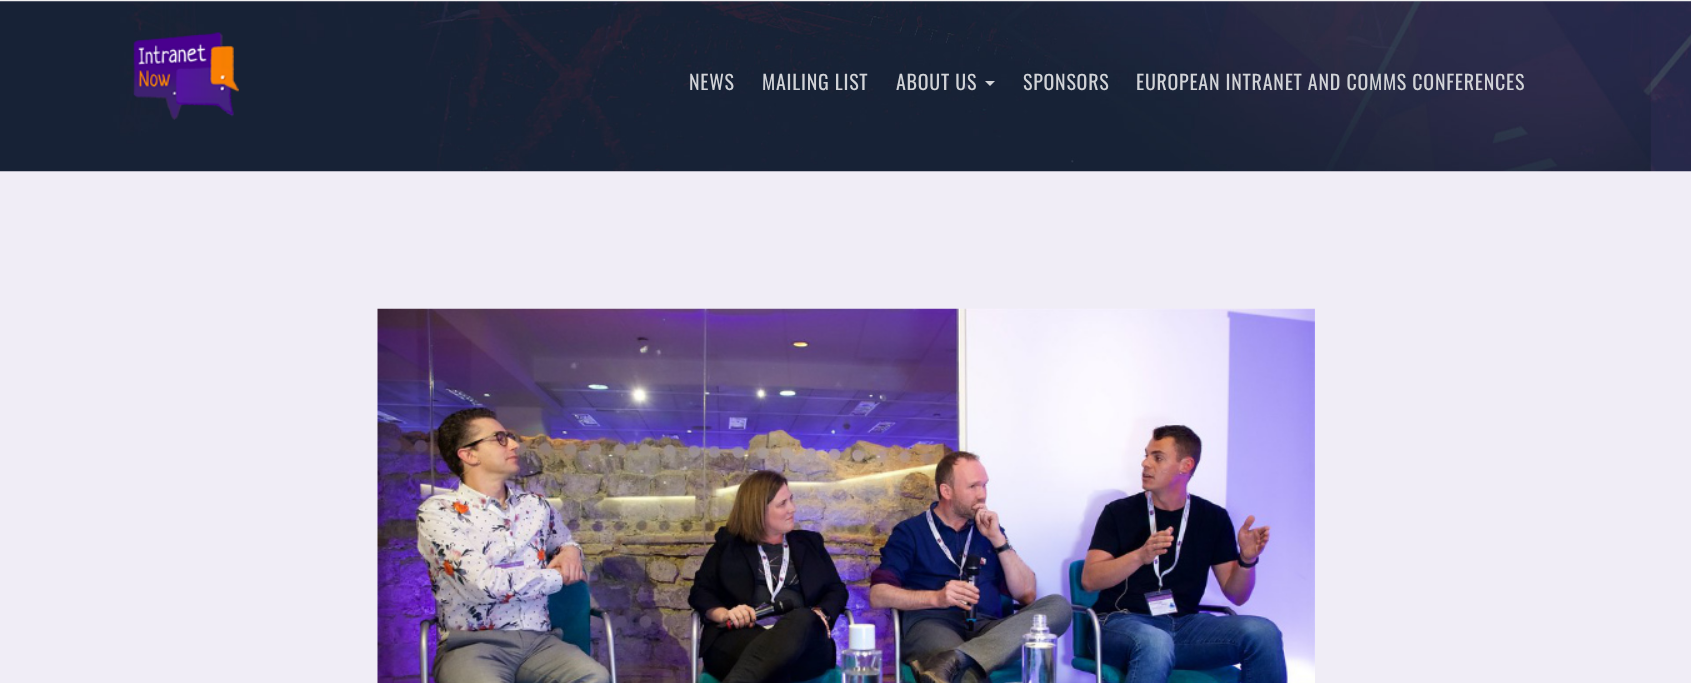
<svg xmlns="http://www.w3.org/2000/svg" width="1691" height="683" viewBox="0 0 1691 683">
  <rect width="100%" height="100%" fill="rgb(240,237,246)"/>
  <image x="0" y="1" width="1691" height="171" href="pic1.png"/>
  <image x="377" y="308" width="938" height="375" href="pic2.png"/>
  <rect x="0" y="0" width="1691" height="1" fill="rgb(241,241,241)"/>
  <image x="133" y="32" width="106" height="88" href="pic3.png"/>
  <g font-family="Oswald" font-size="20" letter-spacing="0.75" fill="rgb(209,211,215)">
    <text x="689" y="90">NEWS</text>
    <text x="762" y="90">MAILING LIST</text>
    <text x="896" y="90">ABOUT US</text>
  </g>
  <path d="M985 81H995L990 86Z" fill="rgb(209,211,215)"/>
  <g font-family="Oswald" font-size="20" letter-spacing="0.75" fill="rgb(209,211,215)">
    <text x="1023" y="90">SPONSORS</text>
    <text x="1136" y="90">EUROPEAN INTRANET AND COMMS CONFERENCES</text>
  </g>
</svg>
